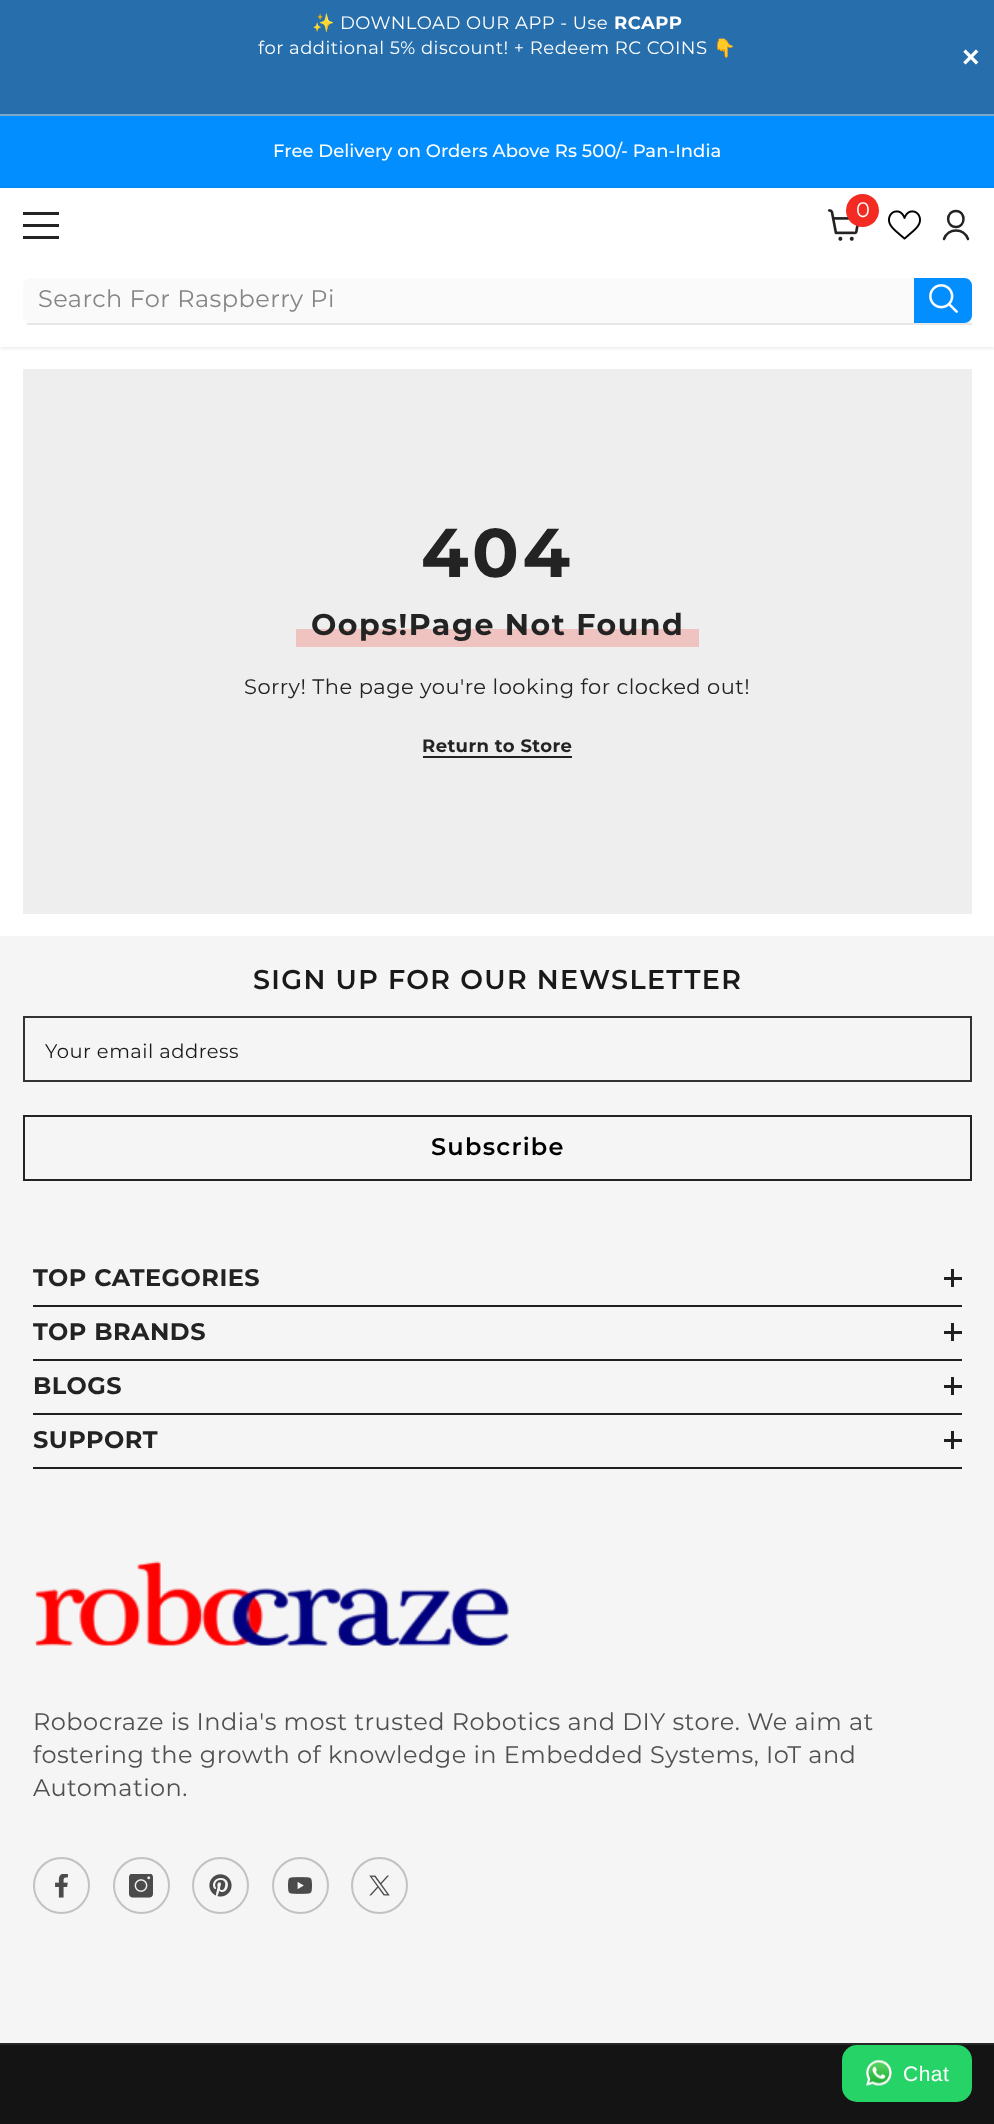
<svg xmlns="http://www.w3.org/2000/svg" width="994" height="2124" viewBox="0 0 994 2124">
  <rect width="100%" height="100%" fill="rgb(255,255,255)"/>
  <rect x="0" y="0" width="994" height="114" fill="rgb(39,110,172)"/>
  <rect x="0" y="114" width="994" height="2" fill="rgb(125,168,205)"/>
  <text x="312" y="29" font-family="Noto Color Emoji" font-size="18" letter-spacing="0.48" fill="rgb(255,255,255)">✨</text>
  <text x="340" y="29" font-family="Montserrat" font-size="18" letter-spacing="0.48" fill="rgb(255,255,255)">DOWNLOAD OUR APP - Use</text>
  <text x="614" y="29" font-family="Montserrat" font-size="18" font-weight="bold" letter-spacing="0.48" fill="rgb(255,255,255)">RCAPP</text>
  <text x="258" y="54" font-family="Montserrat" font-size="18" letter-spacing="0.48" fill="rgb(255,255,255)">for additional 5% discount! + Redeem RC COINS</text>
  <text x="713" y="54" font-family="Noto Color Emoji" font-size="18" letter-spacing="0.48" fill="rgb(255,255,255)">👇</text>
  <text x="962" y="67" font-family="Liberation Sans" font-size="30" font-weight="bold" fill="rgb(255,255,255)">×</text>
  <rect x="0" y="116" width="994" height="72" fill="rgb(2,142,255)"/>
  <text x="273" y="157" font-family="Montserrat" font-size="18" font-weight="500" fill="rgb(255,255,255)">Free Delivery on Orders Above Rs 500/- Pan-India</text>
  <rect x="0" y="189" width="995" height="159" fill="rgba(0,0,0,0.1)" filter="blur(2px)"/>
  <rect x="0" y="188" width="994" height="159" fill="rgb(255,255,255)"/>
  <rect x="23" y="224" width="36" height="3" fill="rgb(35,35,35)"/>
  <rect x="23" y="212" width="36" height="3" fill="rgb(35,35,35)"/>
  <rect x="23" y="236" width="36" height="3" fill="rgb(35,35,35)"/>
  <image x="828" y="209" width="31" height="32" href="pic1.png"/>
  <circle cx="862.5" cy="210.5" r="16.5" fill="rgb(244,43,35)"/>
  <text x="856" y="217" font-family="Montserrat" font-size="21" fill="rgb(255,255,255)">0</text>
  <image x="888" y="210" width="33" height="30" href="pic2.png"/>
  <path d="M956 227C966 227 966 211 956 211C945.5 211 945.5 227 956 227ZM968 239C964 227.5 948 227.5 944 239" fill="none" stroke="rgb(35,35,35)" stroke-width="2.5" stroke-linecap="round" stroke-linejoin="round"/>
  <path d="M31 278H972V324H31C26.5 324 23 320.5 23 316V286C23 281.5 26.5 278 31 278Z" fill="rgb(250,250,250)"/>
  <rect x="27" y="323" width="945" height="2" fill="rgb(231,231,231)"/>
  <text x="38" y="307" font-family="Montserrat" font-size="24" letter-spacing="0.48" fill="rgb(134,134,134)">Search For Raspberry Pi</text>
  <path d="M914 278H964C968.5 278 972 281.5 972 286V315C972 319.5 968.5 323 964 323H914Z" fill="rgb(2,142,255)"/>
  <image x="929" y="284" width="29" height="29" href="pic3.png"/>
  <rect x="23" y="369" width="949" height="545" fill="rgb(238,238,238)"/>
  <text x="421" y="577" font-family="Montserrat" font-size="69" font-weight="bold" letter-spacing="3.5" fill="rgb(35,35,35)">404</text>
  <rect x="296" y="629" width="403" height="18" fill="rgb(239,195,192)"/>
  <text x="311" y="635" font-family="Montserrat" font-size="30" font-weight="bold" letter-spacing="1.5" fill="rgb(35,35,35)">Oops!Page Not Found</text>
  <text x="244" y="694" font-family="Montserrat" font-size="21" letter-spacing="0.48" fill="rgb(35,35,35)">Sorry! The page you're looking for clocked out!</text>
  <text x="422" y="752" font-family="Montserrat" font-size="18" font-weight="bold" letter-spacing="0.4" fill="rgb(35,35,35)">Return to Store</text>
  <rect x="423" y="756" width="149" height="2" fill="rgb(35,35,35)"/>
  <rect x="0" y="936" width="994" height="1107" fill="rgb(245,245,245)"/>
  <text x="253" y="989" font-family="Montserrat" font-size="27" font-weight="600" letter-spacing="1.35" fill="rgb(25,25,25)">SIGN UP FOR OUR NEWSLETTER</text>
  <rect x="24" y="1017" width="947" height="64" fill="none" stroke="rgb(51,51,51)" stroke-width="2"/>
  <text x="45" y="1058" font-family="Montserrat" font-size="19.5" letter-spacing="0.48" fill="rgb(25,25,25)">Your email address</text>
  <rect x="24" y="1116" width="947" height="64" fill="none" stroke="rgb(35,35,35)" stroke-width="2"/>
  <text x="431" y="1155" font-family="Montserrat" font-size="24" font-weight="600" letter-spacing="1.25" fill="rgb(0,0,0)">Subscribe</text>
  <rect x="33" y="1305" width="929" height="2" fill="rgb(32,32,32)"/>
  <text x="33" y="1286" font-family="Montserrat" font-size="24" font-weight="bold" letter-spacing="0.48" fill="rgb(35,35,35)">TOP CATEGORIES</text>
  <rect x="951" y="1269" width="3" height="18" fill="rgb(32,32,32)"/>
  <rect x="944" y="1277" width="18" height="3" fill="rgb(32,32,32)"/>
  <rect x="33" y="1359" width="929" height="2" fill="rgb(32,32,32)"/>
  <text x="33" y="1340" font-family="Montserrat" font-size="24" font-weight="bold" letter-spacing="0.48" fill="rgb(35,35,35)">TOP BRANDS</text>
  <rect x="951" y="1323" width="3" height="18" fill="rgb(32,32,32)"/>
  <rect x="944" y="1331" width="18" height="3" fill="rgb(32,32,32)"/>
  <rect x="33" y="1413" width="929" height="2" fill="rgb(32,32,32)"/>
  <text x="33" y="1394" font-family="Montserrat" font-size="24" font-weight="bold" letter-spacing="0.48" fill="rgb(35,35,35)">BLOGS</text>
  <rect x="951" y="1377" width="3" height="18" fill="rgb(32,32,32)"/>
  <rect x="944" y="1385" width="18" height="3" fill="rgb(32,32,32)"/>
  <rect x="33" y="1467" width="929" height="2" fill="rgb(32,32,32)"/>
  <text x="33" y="1448" font-family="Montserrat" font-size="24" font-weight="bold" letter-spacing="0.48" fill="rgb(35,35,35)">SUPPORT</text>
  <rect x="951" y="1431" width="3" height="18" fill="rgb(32,32,32)"/>
  <rect x="944" y="1439" width="18" height="3" fill="rgb(32,32,32)"/>
  <image x="35" y="1561" width="474" height="85" href="pic4.png"/>
  <g font-family="Montserrat" font-size="24" letter-spacing="0.48" fill="rgb(80,80,80)">
    <text>
      <tspan x="33" y="1730">Robocraze is India's most trusted Robotics and DIY store. We aim at</tspan>
      <tspan x="33" y="1763">fostering the growth of knowledge in Embedded Systems, IoT and</tspan>
      <tspan x="33" y="1796">Automation.</tspan>
    </text>
  </g>
  <circle cx="61.5" cy="1885.5" r="27.5" fill="none" stroke="rgb(194,194,194)" stroke-width="2"/>
  <image x="55" y="1874" width="13" height="24" href="pic5.png"/>
  <circle cx="141.5" cy="1885.5" r="27.5" fill="none" stroke="rgb(194,194,194)" stroke-width="2"/>
  <image x="129" y="1874" width="24" height="24" href="pic6.png"/>
  <circle cx="220.5" cy="1885.5" r="27.5" fill="none" stroke="rgb(194,194,194)" stroke-width="2"/>
  <image x="209" y="1874" width="23" height="23" href="pic7.png"/>
  <circle cx="300.5" cy="1885.5" r="27.5" fill="none" stroke="rgb(194,194,194)" stroke-width="2"/>
  <image x="288" y="1877" width="24" height="17" href="pic8.png"/>
  <circle cx="379.5" cy="1885.5" r="27.5" fill="none" stroke="rgb(194,194,194)" stroke-width="2"/>
  <image x="369" y="1875" width="21" height="21" href="pic9.png"/>
  <rect x="0" y="2045" width="994" height="79" fill="rgb(20,20,20)"/>
  <rect x="0" y="2043" width="994" height="2" fill="rgb(40,40,40)"/>
  <rect x="842" y="2045" width="130" height="57" rx="15" fill="rgb(37,211,102)"/>
  <image x="866" y="2059" width="26" height="28" href="pic10.png"/>
  <text x="903" y="2081" font-family="Liberation Sans" font-size="21" letter-spacing="0.48" fill="rgb(255,255,255)">Chat</text>
</svg>
